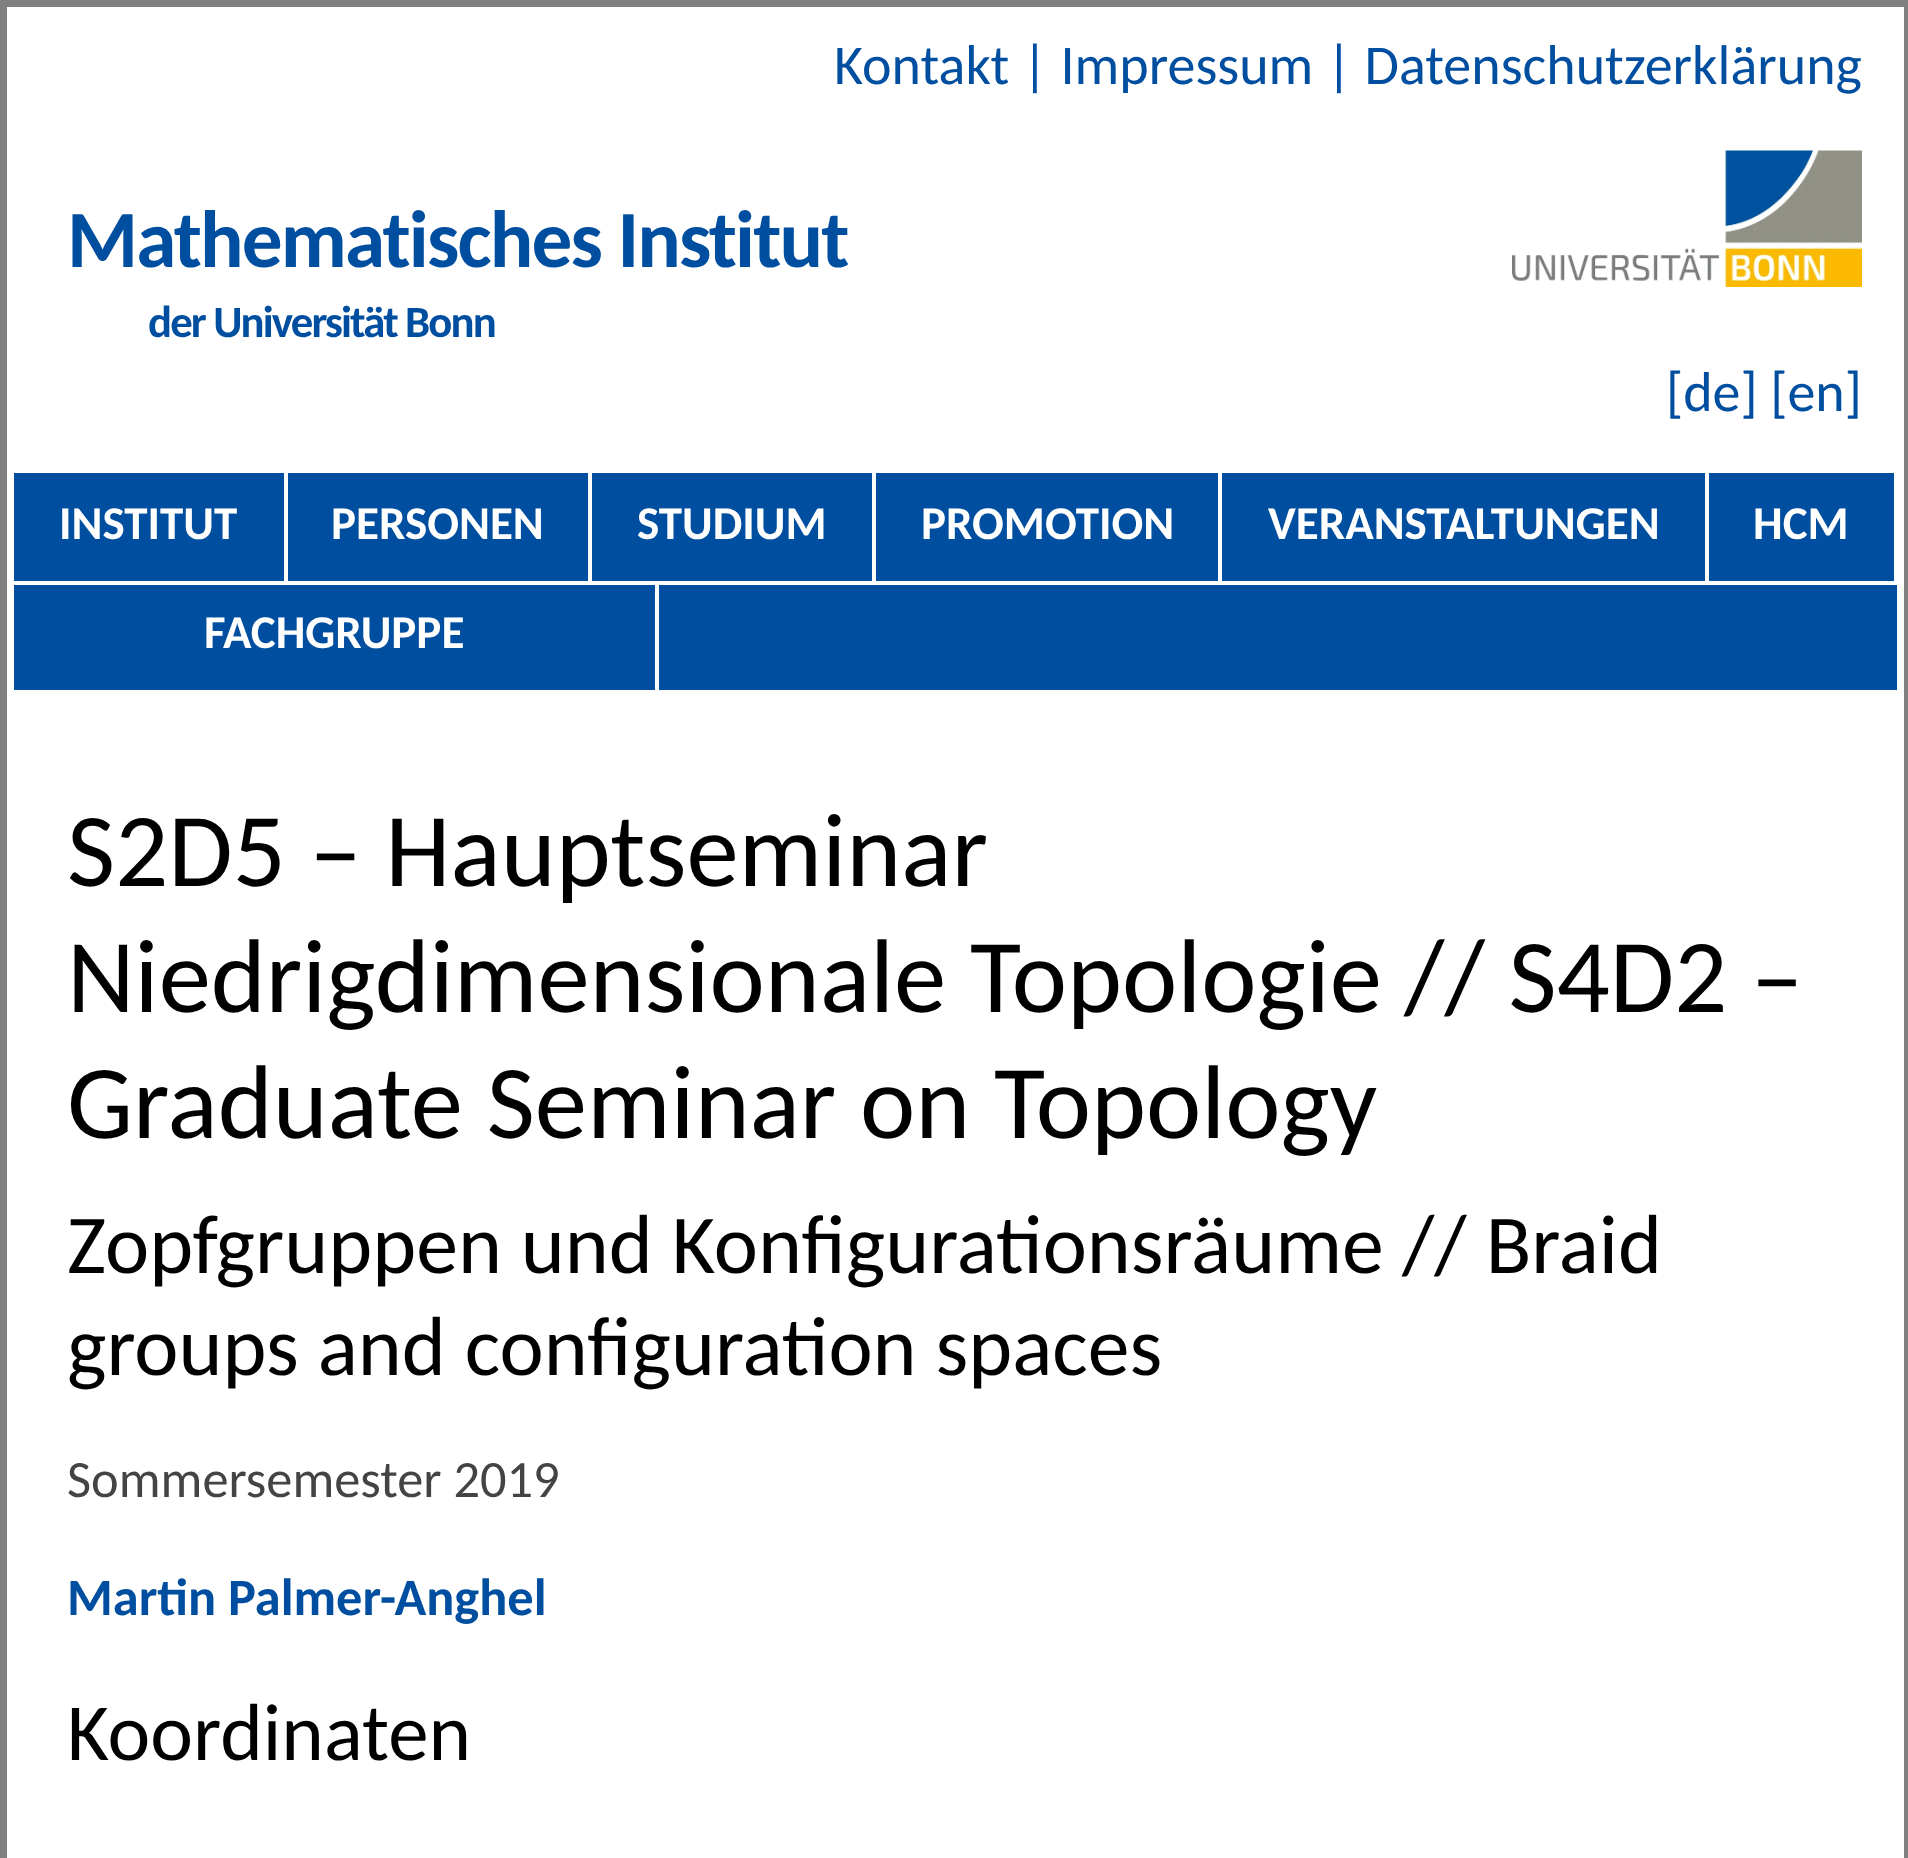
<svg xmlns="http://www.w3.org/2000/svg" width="1908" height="1858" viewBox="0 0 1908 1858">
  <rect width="100%" height="100%" fill="rgb(255,255,255)"/>
  <rect x="3.5" y="3.5" width="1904" height="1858" fill="none" stroke="rgb(128,128,128)" stroke-width="7"/>
  <text x="834" y="84" font-family="Carlito" font-size="56" fill="rgb(0,78,159)">Kontakt | Impressum | Datenschutzerklärung</text>
  <text x="67" y="267" font-family="Carlito" font-size="81.25" font-weight="bold" letter-spacing="-1.85" fill="rgb(0,78,159)">Mathematisches Institut</text>
  <text x="148" y="337" font-family="Carlito" font-size="44.75" font-weight="bold" letter-spacing="-1.85" fill="rgb(0,78,159)">der Universität Bonn</text>
  <image x="1512" y="150" width="350" height="137" href="pic1.png"/>
  <text x="1666" y="411" font-family="Carlito" font-size="56" fill="rgb(0,78,159)">[de] [en]</text>
  <rect x="14" y="473" width="1883" height="217" fill="rgb(0,78,159)"/>
  <rect x="284" y="473" width="4" height="112" fill="rgb(255,255,255)"/>
  <rect x="14" y="581" width="273" height="4" fill="rgb(255,255,255)"/>
  <text x="59" y="539" font-family="Carlito" font-size="47" font-weight="bold" fill="rgb(255,255,255)">INSTITUT</text>
  <rect x="588" y="473" width="4" height="112" fill="rgb(255,255,255)"/>
  <rect x="287" y="581" width="305" height="4" fill="rgb(255,255,255)"/>
  <text x="331" y="539" font-family="Carlito" font-size="47" font-weight="bold" fill="rgb(255,255,255)">PERSONEN</text>
  <rect x="872" y="473" width="4" height="112" fill="rgb(255,255,255)"/>
  <rect x="592" y="581" width="283" height="4" fill="rgb(255,255,255)"/>
  <text x="637" y="539" font-family="Carlito" font-size="47" font-weight="bold" fill="rgb(255,255,255)">STUDIUM</text>
  <rect x="1218" y="473" width="4" height="112" fill="rgb(255,255,255)"/>
  <rect x="875" y="581" width="347" height="4" fill="rgb(255,255,255)"/>
  <text x="921" y="539" font-family="Carlito" font-size="47" font-weight="bold" fill="rgb(255,255,255)">PROMOTION</text>
  <rect x="1705" y="473" width="4" height="112" fill="rgb(255,255,255)"/>
  <rect x="1222" y="581" width="486" height="4" fill="rgb(255,255,255)"/>
  <text x="1268" y="539" font-family="Carlito" font-size="47" font-weight="bold" fill="rgb(255,255,255)">VERANSTALTUNGEN</text>
  <rect x="1894" y="473" width="3" height="112" fill="rgb(255,255,255)"/>
  <rect x="1708" y="581" width="189" height="4" fill="rgb(255,255,255)"/>
  <text x="1753" y="539" font-family="Carlito" font-size="47" font-weight="bold" fill="rgb(255,255,255)">HCM</text>
  <rect x="655" y="585" width="4" height="108" fill="rgb(255,255,255)"/>
  <text x="204" y="648" font-family="Carlito" font-size="47" font-weight="bold" fill="rgb(255,255,255)">FACHGRUPPE</text>
  <g font-family="Carlito" font-size="104.75" fill="rgb(0,0,0)">
    <text>
      <tspan x="67" y="886">S2D5 – Hauptseminar</tspan>
      <tspan x="67" y="1012">Niedrigdimensionale Topologie</tspan>
    </text>
    <text x="1404" y="1012">// S4D2 –</text>
    <text x="67" y="1138">Graduate Seminar on Topology</text>
  </g>
  <g font-family="Carlito" font-size="83.75" fill="rgb(0,0,0)">
    <text x="67" y="1273">Zopfgruppen und Konfigurationsräume</text>
    <text x="1402" y="1273">// Braid</text>
    <text x="67" y="1375">groups and configuration spaces</text>
  </g>
  <text x="67" y="1497" font-family="Carlito" font-size="52.4" fill="rgb(68,68,68)">Sommersemester 2019</text>
  <text x="67" y="1615" font-family="Carlito" font-size="52.4" font-weight="bold" fill="rgb(0,78,159)">Martin Palmer-Anghel</text>
  <text x="67" y="1760" font-family="Carlito" font-size="81" fill="rgb(0,0,0)">Koordinaten</text>
</svg>
